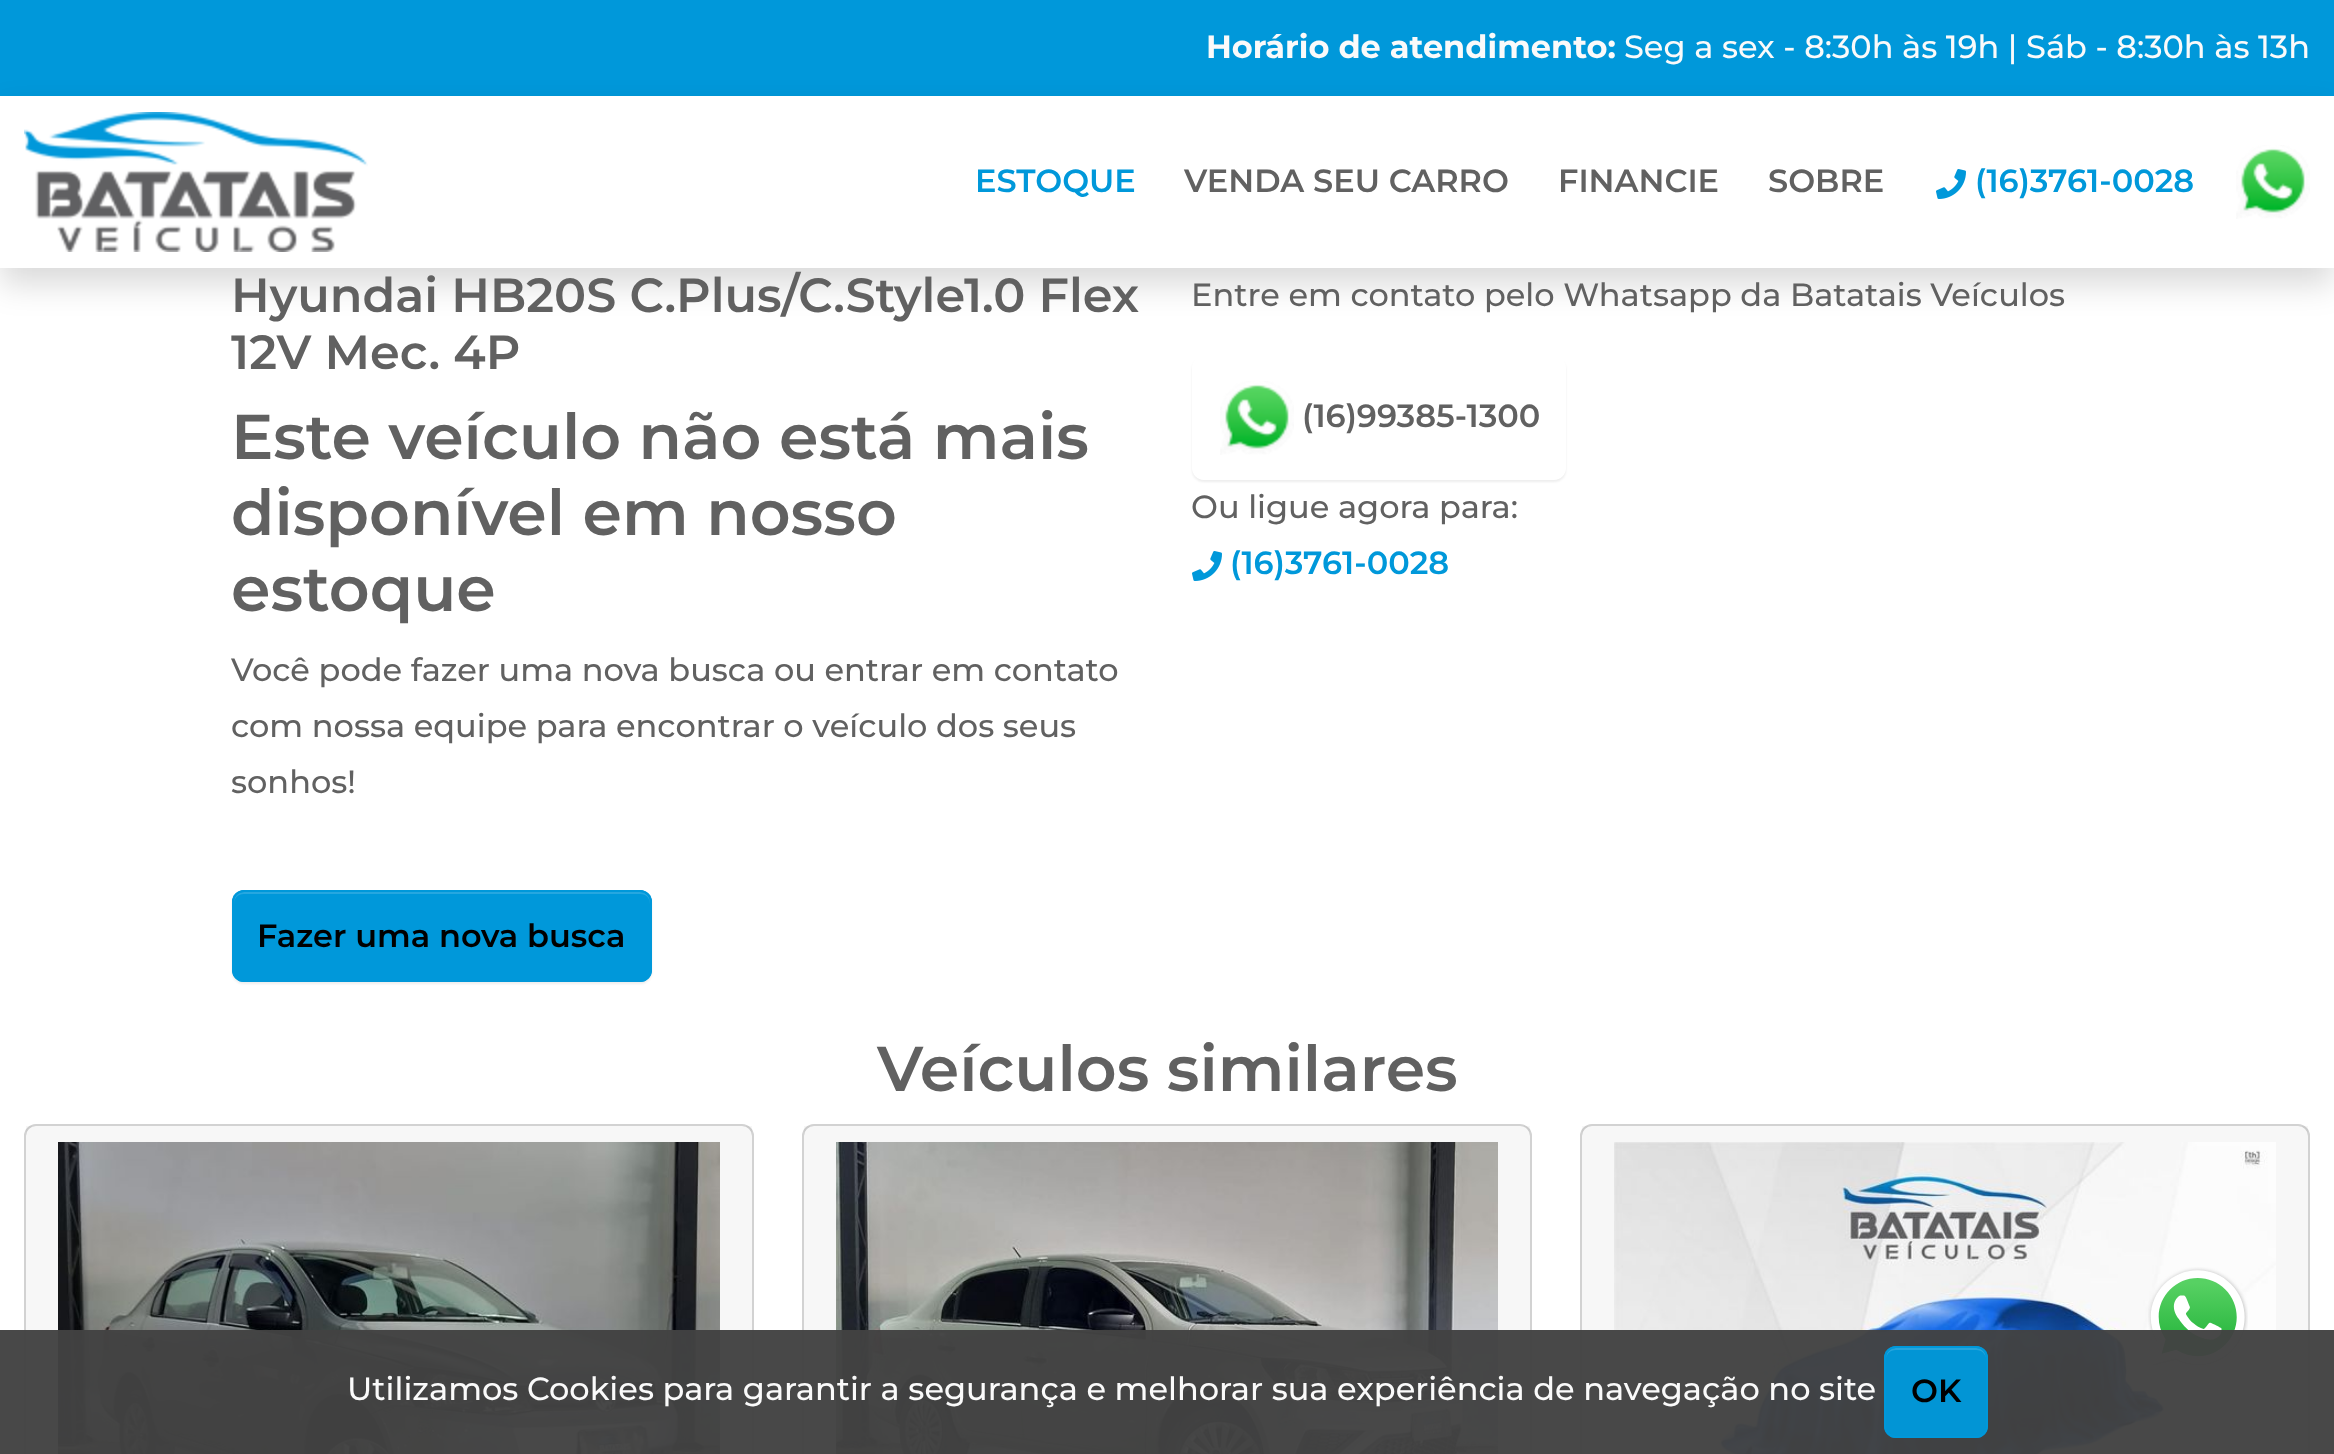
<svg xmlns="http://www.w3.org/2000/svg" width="2334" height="1454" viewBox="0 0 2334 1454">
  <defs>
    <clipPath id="clip1"><path d="M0 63H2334V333H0ZM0 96H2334V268H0Z" clip-rule="evenodd"/></clipPath>
    <clipPath id="clip2"><path d="M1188 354H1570V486H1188ZM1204 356H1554C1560.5 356 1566 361.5 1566 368V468C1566 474.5 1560.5 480 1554 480H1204C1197.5 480 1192 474.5 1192 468V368C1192 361.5 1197.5 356 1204 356Z" clip-rule="evenodd"/></clipPath>
  </defs>
  <rect width="100%" height="100%" fill="rgb(255,255,255)"/>
  <rect x="0" y="0" width="2334" height="96" fill="rgb(0,152,218)"/>
  <text x="1206" y="58" font-family="Montserrat" font-size="32" font-weight="bold" fill="rgb(250,250,250)">Horário de atendimento:</text>
  <text x="1624" y="58" font-family="Montserrat" font-size="32" font-weight="500" fill="rgb(250,250,250)">Seg a sex - 8:30h às 19h | Sáb - 8:30h às 13h</text>
  <g clip-path="url(#clip1)">
    <rect x="0" y="112" width="2334" height="172" fill="rgba(0,0,0,0.15)" filter="blur(16px)"/>
  </g>
  <image x="24" y="112" width="344" height="140" href="pic1.png"/>
  <text x="975" y="192" font-family="Montserrat" font-size="32" font-weight="600" fill="rgb(0,152,218)">ESTOQUE</text>
  <g font-family="Montserrat" font-size="32" font-weight="600" fill="rgb(97,97,97)">
    <text x="1184" y="192">VENDA SEU CARRO</text>
    <text x="1558" y="192">FINANCIE</text>
    <text x="1768" y="192">SOBRE</text>
  </g>
  <image x="1936" y="169" width="30" height="30" href="pic2.png"/>
  <text x="1975" y="192" font-family="Montserrat" font-size="32" font-weight="600" fill="rgb(0,152,218)">(16)3761-0028</text>
  <image x="2236" y="145" width="74" height="74" href="pic3.png"/>
  <g font-family="Montserrat" font-size="47.75" font-weight="600" fill="rgb(97,97,97)">
    <text>
      <tspan x="231" y="312">Hyundai HB20S C.Plus/C.Style1.0 Flex</tspan>
      <tspan x="231" y="369">12V Mec. 4P</tspan>
    </text>
  </g>
  <g font-family="Montserrat" font-size="63.4" font-weight="600" fill="rgb(97,97,97)">
    <text>
      <tspan x="231" y="459">Este veículo não está mais</tspan>
      <tspan x="231" y="535">disponível em nosso</tspan>
      <tspan x="231" y="611">estoque</tspan>
    </text>
  </g>
  <g font-family="Montserrat" font-size="32" font-weight="500" fill="rgb(97,97,97)">
    <text>
      <tspan x="231" y="681">Você pode fazer uma nova busca ou entrar em contato</tspan>
      <tspan x="231" y="737">com nossa equipe para encontrar o veículo dos seus</tspan>
      <tspan x="231" y="793">sonhos!</tspan>
    </text>
  </g>
  <rect x="232" y="892" width="420" height="92" rx="12" fill="rgba(0,0,0,0.07)" filter="blur(1px)"/>
  <rect x="232" y="890" width="420" height="92" rx="12" fill="rgb(0,152,218)"/>
  <path d="M244 894H640C646 894 650 898 650 904V902C650 896 646 892 640 892H244C238 892 234 896 234 902V904C234 898 238 894 244 894Z" fill="rgb(38,167,224)"/>
  <rect x="233" y="891" width="418" height="90" rx="11" fill="none" stroke="rgb(0,152,218)" stroke-width="2"/>
  <text x="257" y="947" font-family="Montserrat" font-size="32" font-weight="600" fill="rgb(0,0,0)">Fazer uma nova busca</text>
  <text x="1191" y="306" font-family="Montserrat" font-size="32" font-weight="500" fill="rgb(97,97,97)">Entre em contato pelo Whatsapp da Batatais Veículos</text>
  <g clip-path="url(#clip2)">
    <rect x="1192" y="358" width="374" height="124" rx="12" fill="rgba(0,0,0,0.07)" filter="blur(1px)"/>
  </g>
  <image x="1220" y="381" width="74" height="74" href="pic3.png"/>
  <text x="1302" y="427" font-family="Montserrat" font-size="32" font-weight="600" fill="rgb(97,97,97)">(16)99385-1300</text>
  <text x="1191" y="518" font-family="Montserrat" font-size="32" font-weight="500" fill="rgb(97,97,97)">Ou ligue agora para:</text>
  <image x="1192" y="551" width="30" height="30" href="pic2.png"/>
  <text x="1230" y="574" font-family="Montserrat" font-size="32" font-weight="600" fill="rgb(0,152,218)">(16)3761-0028</text>
  <text x="877" y="1091" font-family="Montserrat" font-size="63.4" font-weight="600" fill="rgb(97,97,97)">Veículos similares</text>
  <rect x="25" y="1125" width="728" height="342" rx="11" fill="none" stroke="rgb(210,210,210)" stroke-width="2"/>
  <rect x="26" y="1126" width="726" height="328" fill="rgba(0,0,0,0.03)"/>
  <image x="58" y="1142" width="662" height="312" href="pic4.png"/>
  <rect x="803" y="1125" width="728" height="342" rx="11" fill="none" stroke="rgb(210,210,210)" stroke-width="2"/>
  <rect x="804" y="1126" width="726" height="328" fill="rgba(0,0,0,0.03)"/>
  <image x="836" y="1142" width="662" height="312" href="pic5.png"/>
  <rect x="1581" y="1125" width="728" height="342" rx="11" fill="none" stroke="rgb(210,210,210)" stroke-width="2"/>
  <rect x="1582" y="1126" width="726" height="328" fill="rgba(0,0,0,0.03)"/>
  <image x="1614" y="1142" width="662" height="312" href="pic6.png"/>
  <image x="2148" y="1267" width="100" height="101" href="pic7.png"/>
  <rect x="0" y="1330" width="2334" height="124" fill="rgba(66,66,66,0.97)"/>
  <text x="347" y="1400" font-family="Montserrat" font-size="32" font-weight="500" fill="rgb(250,250,250)">Utilizamos Cookies para garantir a segurança e melhorar sua experiência de navegação no site</text>
  <rect x="1884" y="1346" width="104" height="92" rx="12" fill="rgba(0,152,218,0.97)"/>
  <path d="M1896 1350H1976C1982 1350 1986 1354 1986 1360C1986 1345 1974 1348 1963 1348H1909C1898 1348 1886 1345 1886 1360C1886 1354 1890 1350 1896 1350Z" fill="rgb(39,165,220)"/>
  <rect x="1885" y="1347" width="102" height="90" rx="11" fill="none" stroke="rgba(0,152,218,0.97)" stroke-width="2"/>
  <text x="1911" y="1402" font-family="Montserrat" font-size="32" font-weight="600" fill="rgb(0,0,0)">OK</text>
</svg>
